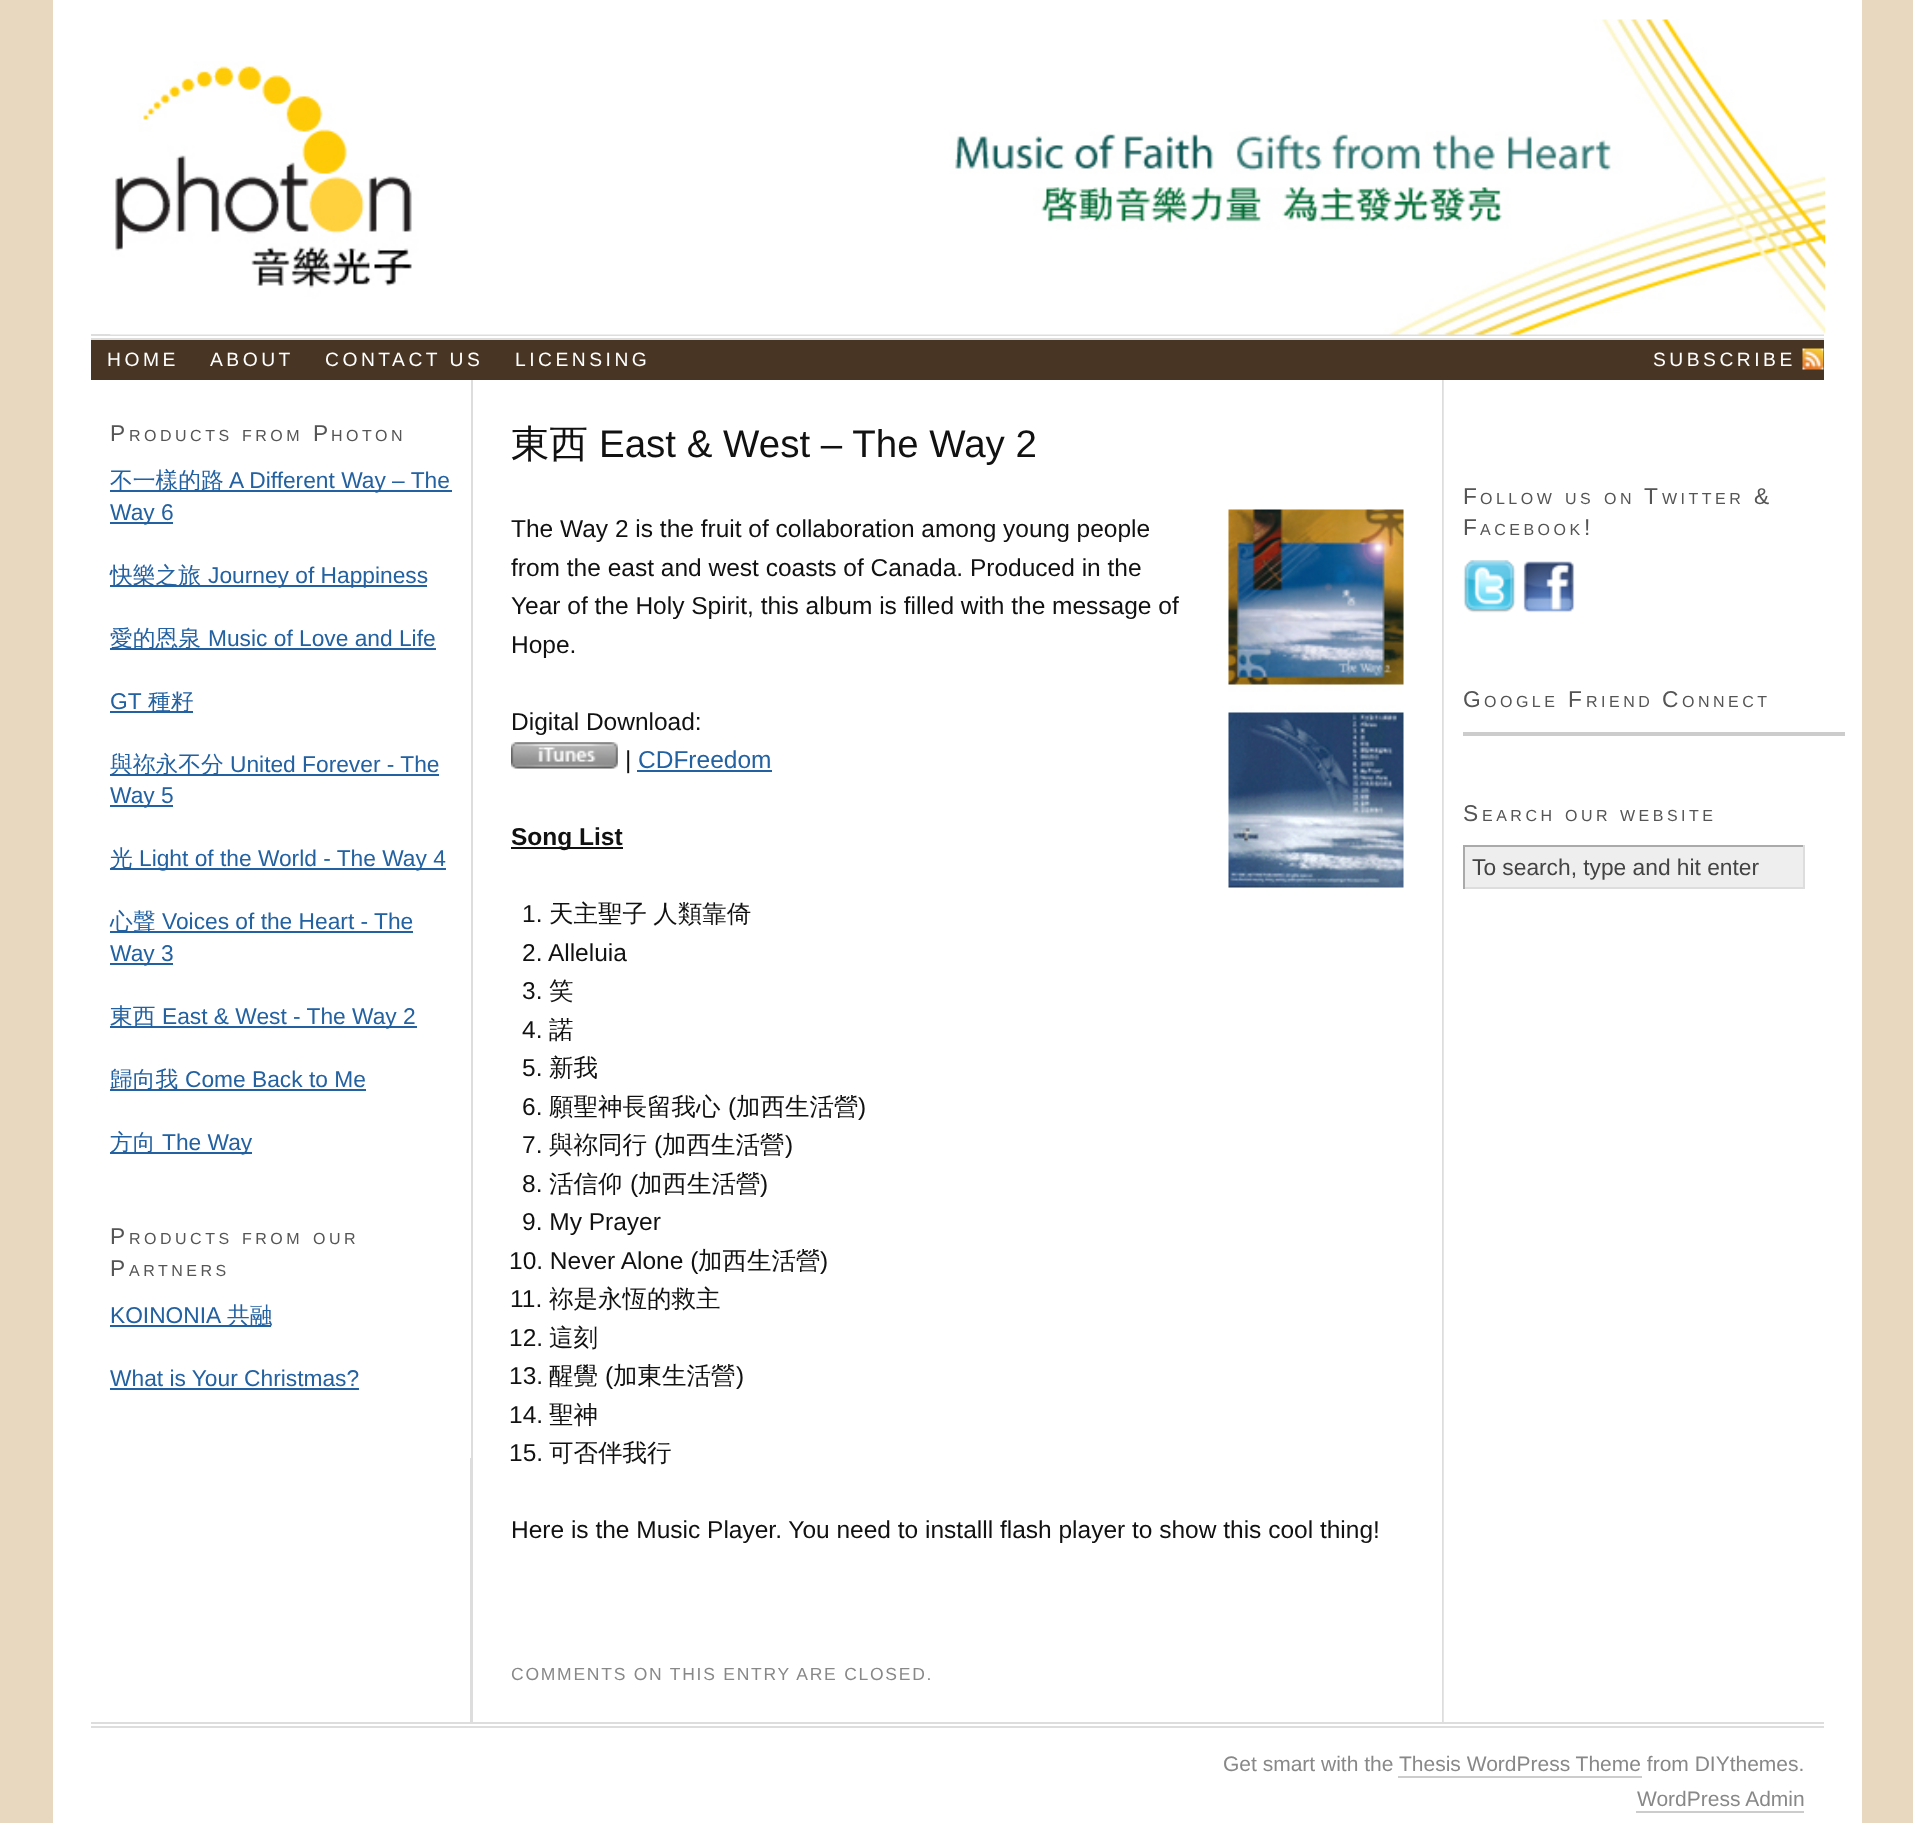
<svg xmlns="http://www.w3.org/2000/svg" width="1913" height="1823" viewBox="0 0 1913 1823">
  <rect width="100%" height="100%" fill="rgb(232,216,192)"/>
  <rect x="53" y="0" width="1809" height="1823" fill="rgb(255,255,255)"/>
  <rect x="91" y="334" width="1733" height="2" fill="rgb(221,221,221)"/>
  <rect x="91" y="338" width="1733" height="2" fill="rgb(221,221,221)"/>
  <image x="110" y="19" width="1716" height="316" href="pic1.png"/>
  <rect x="91" y="340" width="1733" height="40" fill="rgb(73,53,35)"/>
  <g font-family="Liberation Sans" font-size="19.25" letter-spacing="3.5" fill="rgb(255,255,255)">
    <text x="107" y="366">HOME</text>
    <text x="210" y="366">ABOUT</text>
    <text x="325" y="366">CONTACT US</text>
    <text x="515" y="366">LICENSING</text>
  </g>
  <image x="1802" y="348" width="22" height="22" href="pic2.png"/>
  <text x="1653" y="366" font-family="Liberation Sans" font-size="19.25" letter-spacing="3.5" fill="rgb(255,255,255)">SUBSCRIBE</text>
  <image x="1442" y="380" width="2" height="1342" href="pic3.png"/>
  <rect x="470" y="380" width="3" height="1342" fill="rgb(221,221,221)"/>
  <rect x="470" y="380" width="1" height="1078" fill="rgb(255,255,255)"/>
  <text x="110" y="441" font-family="Liberation Sans" font-size="22.75" letter-spacing="3.5" fill="rgb(85,85,85)">P</text>
  <g font-family="Liberation Sans" font-size="16" letter-spacing="3.5" fill="rgb(85,85,85)">
    <text x="129" y="441">RODUCTS</text>
    <text x="242" y="441">FROM</text>
  </g>
  <text x="313" y="441" font-family="Liberation Sans" font-size="22.75" letter-spacing="3.5" fill="rgb(85,85,85)">P</text>
  <text x="331" y="441" font-family="Liberation Sans" font-size="16" letter-spacing="3.5" fill="rgb(85,85,85)">HOTON</text>
  <rect x="110" y="490" width="342" height="2" fill="rgb(35,97,161)"/>
  <text x="110" y="488" font-family="WenQuanYi Zen Hei" font-size="22.75" font-weight="500" fill="rgb(35,97,161)">不一樣的路</text>
  <text x="229" y="488" font-family="Liberation Sans" font-size="22.75" fill="rgb(35,97,161)">A Different Way – The</text>
  <rect x="110" y="522" width="63" height="2" fill="rgb(35,97,161)"/>
  <text x="110" y="520" font-family="Liberation Sans" font-size="22.75" fill="rgb(35,97,161)">Way 6</text>
  <rect x="110" y="585" width="317" height="2" fill="rgb(35,97,161)"/>
  <text x="110" y="583" font-family="WenQuanYi Zen Hei" font-size="22.75" font-weight="500" fill="rgb(35,97,161)">快樂之旅</text>
  <text x="208" y="583" font-family="Liberation Sans" font-size="22.75" fill="rgb(35,97,161)">Journey of Happiness</text>
  <rect x="110" y="648" width="326" height="2" fill="rgb(35,97,161)"/>
  <text x="110" y="646" font-family="WenQuanYi Zen Hei" font-size="22.75" font-weight="500" fill="rgb(35,97,161)">愛的恩泉</text>
  <g font-family="Liberation Sans" font-size="22.75" fill="rgb(35,97,161)">
    <text x="208" y="646">Music of Love and Life</text>
    <text x="110" y="709">GT</text>
  </g>
  <rect x="110" y="711" width="83" height="2" fill="rgb(35,97,161)"/>
  <text x="148" y="709" font-family="WenQuanYi Zen Hei" font-size="22.75" font-weight="500" fill="rgb(35,97,161)">種籽</text>
  <rect x="110" y="774" width="329" height="2" fill="rgb(35,97,161)"/>
  <text x="110" y="772" font-family="WenQuanYi Zen Hei" font-size="22.75" font-weight="500" fill="rgb(35,97,161)">與祢永不分</text>
  <text x="230" y="772" font-family="Liberation Sans" font-size="22.75" fill="rgb(35,97,161)">United Forever - The</text>
  <rect x="110" y="805" width="63" height="2" fill="rgb(35,97,161)"/>
  <text x="110" y="803" font-family="Liberation Sans" font-size="22.75" fill="rgb(35,97,161)">Way 5</text>
  <rect x="110" y="868" width="336" height="2" fill="rgb(35,97,161)"/>
  <text x="110" y="866" font-family="WenQuanYi Zen Hei" font-size="22.75" font-weight="500" fill="rgb(35,97,161)">光</text>
  <text x="139" y="866" font-family="Liberation Sans" font-size="22.75" fill="rgb(35,97,161)">Light of the World - The Way 4</text>
  <rect x="110" y="931" width="303" height="2" fill="rgb(35,97,161)"/>
  <text x="110" y="929" font-family="WenQuanYi Zen Hei" font-size="22.75" font-weight="500" fill="rgb(35,97,161)">心聲</text>
  <text x="162" y="929" font-family="Liberation Sans" font-size="22.75" fill="rgb(35,97,161)">Voices of the Heart - The</text>
  <rect x="110" y="963" width="63" height="2" fill="rgb(35,97,161)"/>
  <text x="110" y="961" font-family="Liberation Sans" font-size="22.75" fill="rgb(35,97,161)">Way 3</text>
  <rect x="110" y="1026" width="307" height="2" fill="rgb(35,97,161)"/>
  <text x="110" y="1024" font-family="WenQuanYi Zen Hei" font-size="22.75" font-weight="500" fill="rgb(35,97,161)">東西</text>
  <text x="162" y="1024" font-family="Liberation Sans" font-size="22.75" fill="rgb(35,97,161)">East &amp; West - The Way 2</text>
  <rect x="110" y="1089" width="256" height="2" fill="rgb(35,97,161)"/>
  <text x="110" y="1087" font-family="WenQuanYi Zen Hei" font-size="22.75" font-weight="500" fill="rgb(35,97,161)">歸向我</text>
  <text x="185" y="1087" font-family="Liberation Sans" font-size="22.75" fill="rgb(35,97,161)">Come Back to Me</text>
  <rect x="110" y="1152" width="142" height="2" fill="rgb(35,97,161)"/>
  <text x="110" y="1150" font-family="WenQuanYi Zen Hei" font-size="22.75" font-weight="500" fill="rgb(35,97,161)">方向</text>
  <text x="162" y="1150" font-family="Liberation Sans" font-size="22.75" fill="rgb(35,97,161)">The Way</text>
  <text x="110" y="1244" font-family="Liberation Sans" font-size="22.75" letter-spacing="3.5" fill="rgb(85,85,85)">P</text>
  <g font-family="Liberation Sans" font-size="16" letter-spacing="3.5" fill="rgb(85,85,85)">
    <text x="129" y="1244">RODUCTS</text>
    <text x="242" y="1244">FROM</text>
    <text x="313" y="1244">OUR</text>
  </g>
  <text x="110" y="1276" font-family="Liberation Sans" font-size="22.75" letter-spacing="3.5" fill="rgb(85,85,85)">P</text>
  <text x="129" y="1276" font-family="Liberation Sans" font-size="16" letter-spacing="3.5" fill="rgb(85,85,85)">ARTNERS</text>
  <text x="110" y="1323" font-family="Liberation Sans" font-size="22.75" fill="rgb(35,97,161)">KOINONIA</text>
  <rect x="110" y="1325" width="161" height="2" fill="rgb(35,97,161)"/>
  <text x="227" y="1323" font-family="WenQuanYi Zen Hei" font-size="22.75" font-weight="500" fill="rgb(35,97,161)">共融</text>
  <text x="110" y="1386" font-family="Liberation Sans" font-size="22.75" fill="rgb(35,97,161)">What is Your Christmas?</text>
  <rect x="110" y="1388" width="249" height="2" fill="rgb(35,97,161)"/>
  <text x="511" y="457" font-family="WenQuanYi Zen Hei" font-size="38.5" font-weight="500" fill="rgb(17,17,17)">東西</text>
  <text x="599" y="457" font-family="Liberation Sans" font-size="38.5" fill="rgb(17,17,17)">East &amp; West – The Way 2</text>
  <text x="511" y="537" font-family="Liberation Sans" font-size="24.5" fill="rgb(17,17,17)">The Way 2 is the fruit of collaboration among young people</text>
  <image x="1228" y="509" width="176" height="379" href="pic4.png"/>
  <g font-family="Liberation Sans" font-size="24.5" fill="rgb(17,17,17)">
    <text>
      <tspan x="511" y="576">from the east and west coasts of Canada. Produced in the</tspan>
      <tspan x="511" y="614">Year of the Holy Spirit, this album is filled with the message of</tspan>
      <tspan x="511" y="653">Hope.</tspan>
    </text>
    <text x="511" y="730">Digital Download:</text>
  </g>
  <image x="511" y="742" width="107" height="27" href="pic5.png"/>
  <text x="625" y="768" font-family="Liberation Sans" font-size="24.5" fill="rgb(17,17,17)">|</text>
  <text x="638" y="768" font-family="Liberation Sans" font-size="24.5" fill="rgb(35,97,161)">CDFreedom</text>
  <rect x="637" y="770" width="135" height="2" fill="rgb(35,97,161)"/>
  <rect x="511" y="847" width="112" height="2" fill="rgb(17,17,17)"/>
  <text x="511" y="845" font-family="Liberation Sans" font-size="24.5" font-weight="bold" fill="rgb(17,17,17)">Song List</text>
  <text x="522" y="922" font-family="Liberation Sans" font-size="24.5" fill="rgb(17,17,17)">1.</text>
  <text x="549" y="922" word-spacing="-1" font-family="WenQuanYi Zen Hei" font-size="24.5" font-weight="500" fill="rgb(17,17,17)">天主聖子 人類靠倚</text>
  <g font-family="Liberation Sans" font-size="24.5" fill="rgb(17,17,17)">
    <text>
      <tspan x="522" y="961">2. Alleluia</tspan>
      <tspan x="522" y="999">3.</tspan>
    </text>
  </g>
  <text x="549" y="999" font-family="WenQuanYi Zen Hei" font-size="24.5" font-weight="500" fill="rgb(17,17,17)">笑</text>
  <text x="522" y="1038" font-family="Liberation Sans" font-size="24.5" fill="rgb(17,17,17)">4.</text>
  <text x="549" y="1038" font-family="WenQuanYi Zen Hei" font-size="24.5" font-weight="500" fill="rgb(17,17,17)">諾</text>
  <text x="522" y="1076" font-family="Liberation Sans" font-size="24.5" fill="rgb(17,17,17)">5.</text>
  <text x="549" y="1076" font-family="WenQuanYi Zen Hei" font-size="24.5" font-weight="500" fill="rgb(17,17,17)">新我</text>
  <text x="522" y="1115" font-family="Liberation Sans" font-size="24.5" fill="rgb(17,17,17)">6.</text>
  <text x="549" y="1115" font-family="WenQuanYi Zen Hei" font-size="24.5" font-weight="500" fill="rgb(17,17,17)">願聖神長留我心</text>
  <text x="728" y="1115" font-family="Liberation Sans" font-size="24.5" fill="rgb(17,17,17)">(</text>
  <text x="736" y="1115" font-family="WenQuanYi Zen Hei" font-size="24.5" font-weight="500" fill="rgb(17,17,17)">加西生活營</text>
  <g font-family="Liberation Sans" font-size="24.5" fill="rgb(17,17,17)">
    <text x="858" y="1115">)</text>
    <text x="522" y="1153">7.</text>
  </g>
  <text x="549" y="1153" font-family="WenQuanYi Zen Hei" font-size="24.5" font-weight="500" fill="rgb(17,17,17)">與祢同行</text>
  <text x="654" y="1153" font-family="Liberation Sans" font-size="24.5" fill="rgb(17,17,17)">(</text>
  <text x="662" y="1153" font-family="WenQuanYi Zen Hei" font-size="24.5" font-weight="500" fill="rgb(17,17,17)">加西生活營</text>
  <g font-family="Liberation Sans" font-size="24.5" fill="rgb(17,17,17)">
    <text x="785" y="1153">)</text>
    <text x="522" y="1192">8.</text>
  </g>
  <text x="549" y="1192" font-family="WenQuanYi Zen Hei" font-size="24.5" font-weight="500" fill="rgb(17,17,17)">活信仰</text>
  <text x="630" y="1192" font-family="Liberation Sans" font-size="24.5" fill="rgb(17,17,17)">(</text>
  <text x="638" y="1192" font-family="WenQuanYi Zen Hei" font-size="24.5" font-weight="500" fill="rgb(17,17,17)">加西生活營</text>
  <g font-family="Liberation Sans" font-size="24.5" fill="rgb(17,17,17)">
    <text x="760" y="1192">)</text>
    <text x="522" y="1230">9. My Prayer</text>
    <text x="509" y="1269">10. Never Alone (</text>
  </g>
  <text x="698" y="1269" font-family="WenQuanYi Zen Hei" font-size="24.5" font-weight="500" fill="rgb(17,17,17)">加西生活營</text>
  <g font-family="Liberation Sans" font-size="24.5" fill="rgb(17,17,17)">
    <text x="820" y="1269">)</text>
    <text x="510" y="1307">11.</text>
  </g>
  <text x="549" y="1307" font-family="WenQuanYi Zen Hei" font-size="24.5" font-weight="500" fill="rgb(17,17,17)">祢是永恆的救主</text>
  <text x="509" y="1346" font-family="Liberation Sans" font-size="24.5" fill="rgb(17,17,17)">12.</text>
  <text x="549" y="1346" font-family="WenQuanYi Zen Hei" font-size="24.5" font-weight="500" fill="rgb(17,17,17)">這刻</text>
  <text x="509" y="1384" font-family="Liberation Sans" font-size="24.5" fill="rgb(17,17,17)">13.</text>
  <text x="549" y="1384" font-family="WenQuanYi Zen Hei" font-size="24.5" font-weight="500" fill="rgb(17,17,17)">醒覺</text>
  <text x="605" y="1384" font-family="Liberation Sans" font-size="24.5" fill="rgb(17,17,17)">(</text>
  <text x="613" y="1384" font-family="WenQuanYi Zen Hei" font-size="24.5" font-weight="500" fill="rgb(17,17,17)">加東生活營</text>
  <g font-family="Liberation Sans" font-size="24.5" fill="rgb(17,17,17)">
    <text x="736" y="1384">)</text>
    <text x="509" y="1423">14.</text>
  </g>
  <text x="549" y="1423" font-family="WenQuanYi Zen Hei" font-size="24.5" font-weight="500" fill="rgb(17,17,17)">聖神</text>
  <text x="509" y="1461" font-family="Liberation Sans" font-size="24.5" fill="rgb(17,17,17)">15.</text>
  <text x="549" y="1461" font-family="WenQuanYi Zen Hei" font-size="24.5" font-weight="500" fill="rgb(17,17,17)">可否伴我行</text>
  <text x="511" y="1538" font-family="Liberation Sans" font-size="24.5" fill="rgb(17,17,17)">Here is the Music Player. You need to installl flash player to show this cool thing!</text>
  <text x="511" y="1680" font-family="Liberation Sans" font-size="17.5" letter-spacing="1.75" fill="rgb(136,136,136)">COMMENTS ON THIS ENTRY ARE CLOSED.</text>
  <text x="1463" y="504" font-family="Liberation Sans" font-size="22.75" letter-spacing="3.5" fill="rgb(85,85,85)">F</text>
  <g font-family="Liberation Sans" font-size="16" letter-spacing="3.5" fill="rgb(85,85,85)">
    <text x="1480" y="504">OLLOW</text>
    <text x="1565" y="504">US</text>
    <text x="1604" y="504">ON</text>
  </g>
  <text x="1644" y="504" font-family="Liberation Sans" font-size="22.75" letter-spacing="3.5" fill="rgb(85,85,85)">T</text>
  <text x="1662" y="504" font-family="Liberation Sans" font-size="16" letter-spacing="3.5" fill="rgb(85,85,85)">WITTER</text>
  <g font-family="Liberation Sans" font-size="22.75" letter-spacing="3.5" fill="rgb(85,85,85)">
    <text x="1754" y="504">&amp;</text>
    <text x="1463" y="535">F</text>
  </g>
  <text x="1480" y="535" font-family="Liberation Sans" font-size="16" letter-spacing="3.5" fill="rgb(85,85,85)">ACEBOOK</text>
  <text x="1584" y="535" font-family="Liberation Sans" font-size="22.75" letter-spacing="3.5" fill="rgb(85,85,85)">!</text>
  <image x="1463" y="560" width="53" height="53" href="pic6.png"/>
  <image x="1523" y="561" width="52" height="52" href="pic7.png"/>
  <text x="1463" y="707" font-family="Liberation Sans" font-size="22.75" letter-spacing="3.5" fill="rgb(85,85,85)">G</text>
  <text x="1484" y="707" font-family="Liberation Sans" font-size="16" letter-spacing="3.5" fill="rgb(85,85,85)">OOGLE</text>
  <text x="1568" y="707" font-family="Liberation Sans" font-size="22.75" letter-spacing="3.5" fill="rgb(85,85,85)">F</text>
  <text x="1586" y="707" font-family="Liberation Sans" font-size="16" letter-spacing="3.5" fill="rgb(85,85,85)">RIEND</text>
  <text x="1662" y="707" font-family="Liberation Sans" font-size="22.75" letter-spacing="3.5" fill="rgb(85,85,85)">C</text>
  <text x="1682" y="707" font-family="Liberation Sans" font-size="16" letter-spacing="3.5" fill="rgb(85,85,85)">ONNECT</text>
  <rect x="1463" y="732" width="382" height="4" fill="rgb(204,204,204)"/>
  <text x="1463" y="821" font-family="Liberation Sans" font-size="22.75" letter-spacing="3.5" fill="rgb(85,85,85)">S</text>
  <g font-family="Liberation Sans" font-size="16" letter-spacing="3.5" fill="rgb(85,85,85)">
    <text x="1482" y="821">EARCH</text>
    <text x="1565" y="821">OUR</text>
    <text x="1620" y="821">WEBSITE</text>
  </g>
  <rect x="1465" y="847" width="338" height="40" fill="rgb(238,238,238)"/>
  <rect x="1463" y="845" width="341" height="2" fill="rgb(170,170,170)"/>
  <rect x="1803" y="845" width="2" height="44" fill="rgb(221,221,221)"/>
  <rect x="1463" y="887" width="341" height="2" fill="rgb(221,221,221)"/>
  <rect x="1463" y="845" width="2" height="44" fill="rgb(170,170,170)"/>
  <text x="1472" y="875" font-family="Liberation Sans" font-size="22.75" fill="rgb(68,68,68)">To search, type and hit enter</text>
  <rect x="91" y="1722" width="1733" height="2" fill="rgb(221,221,221)"/>
  <rect x="91" y="1726" width="1733" height="2" fill="rgb(221,221,221)"/>
  <g font-family="Liberation Sans" font-size="21" fill="rgb(136,136,136)">
    <text x="1223" y="1771">Get smart with the</text>
    <text x="1399" y="1771">Thesis WordPress Theme from DIYthemes.</text>
  </g>
  <rect x="1398" y="1776" width="244" height="2" fill="rgb(204,204,204)"/>
  <text x="1637" y="1806" font-family="Liberation Sans" font-size="21" fill="rgb(136,136,136)">WordPress Admin</text>
  <rect x="1636" y="1811" width="168" height="2" fill="rgb(204,204,204)"/>
</svg>
